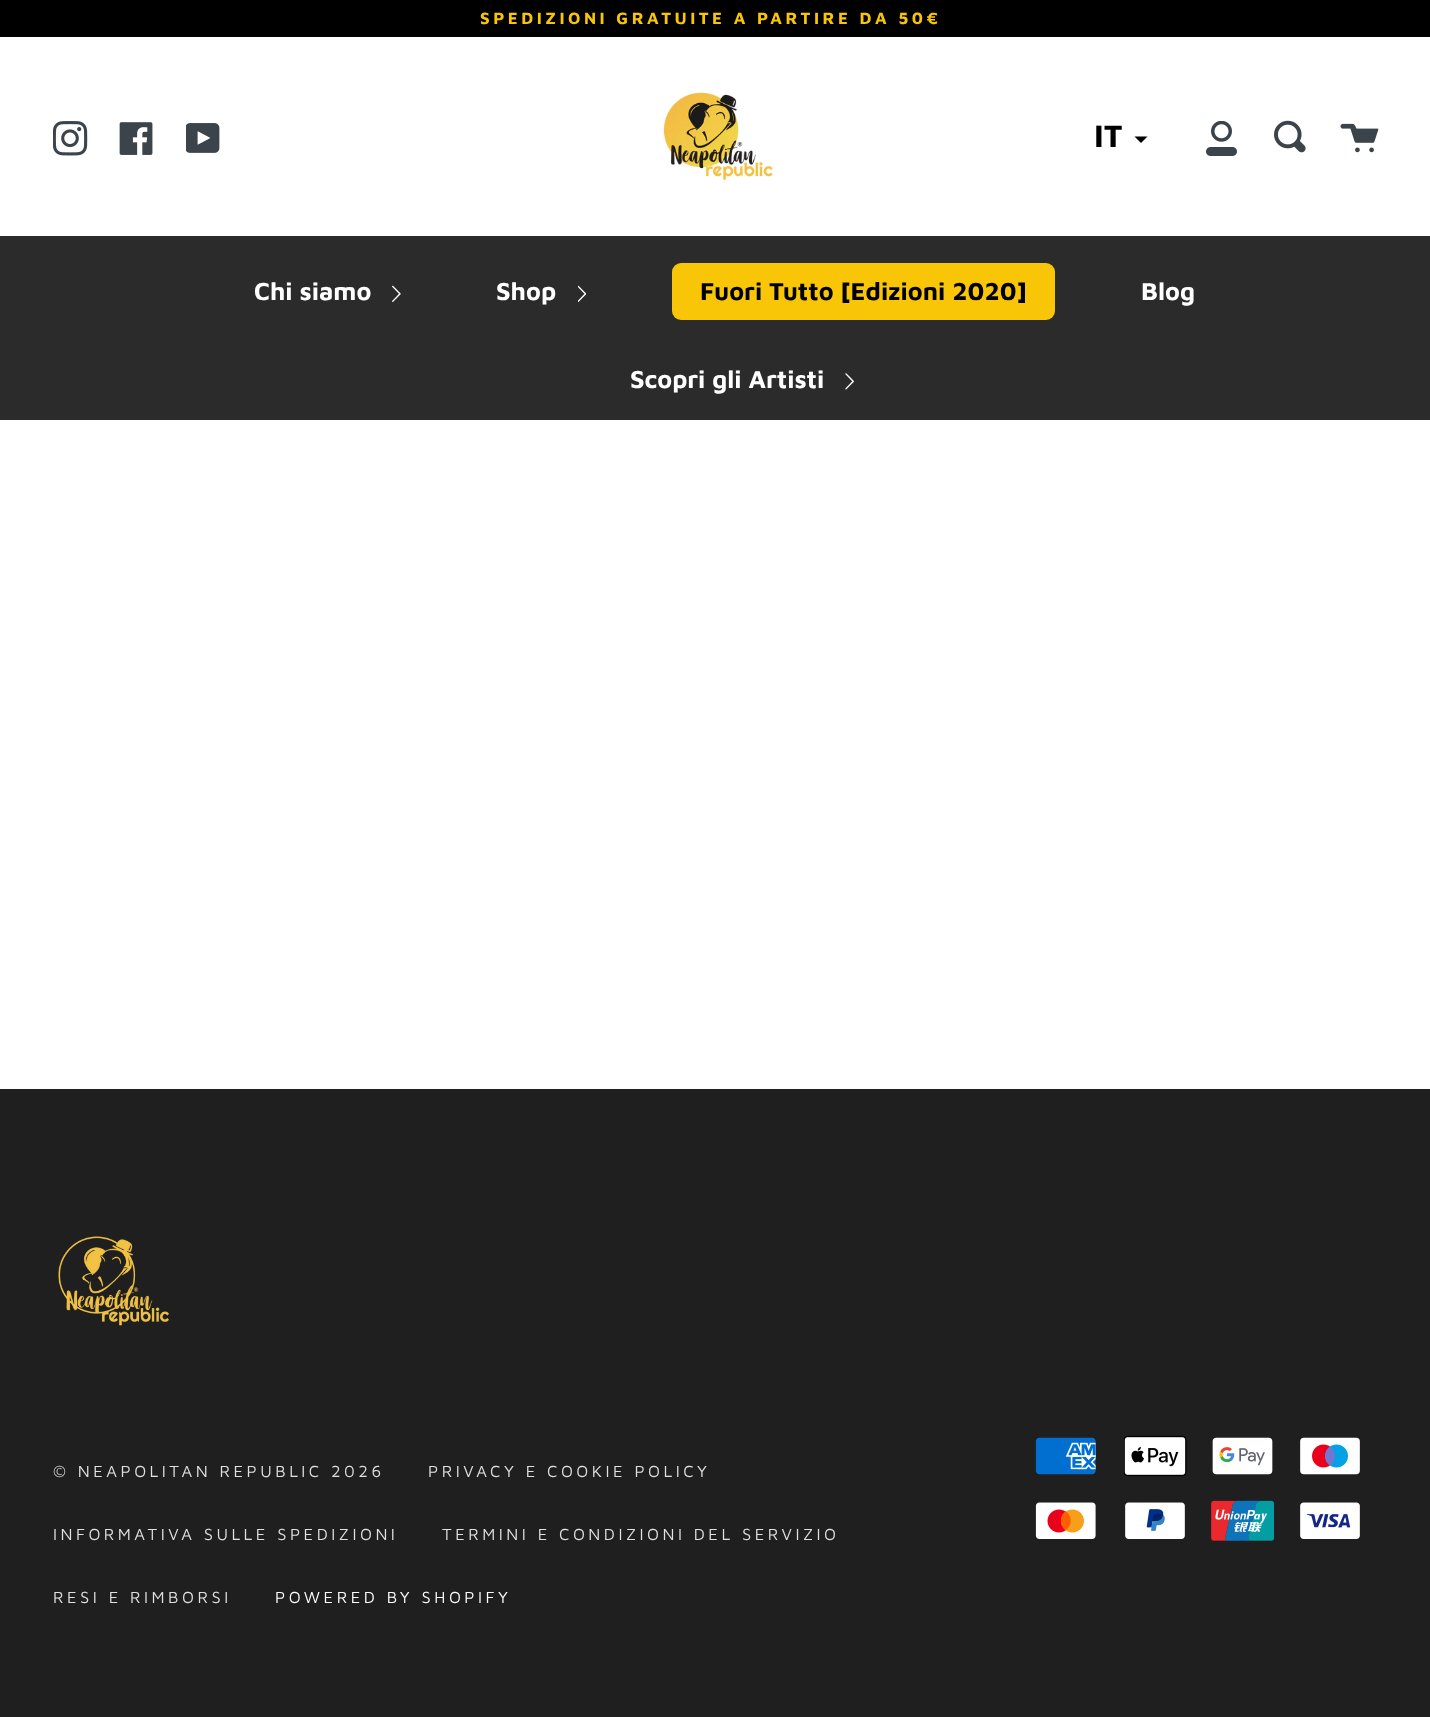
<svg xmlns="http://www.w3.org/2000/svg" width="1430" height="1717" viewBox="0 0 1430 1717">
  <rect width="100%" height="100%" fill="rgb(255,255,255)"/>
  <rect x="0" y="0" width="1430" height="37" fill="rgb(0,0,0)"/>
  <text x="480" y="24" font-family="Maven Pro" font-size="16.8" font-weight="bold" letter-spacing="3.5" fill="rgb(248,197,7)">SPEDIZIONI GRATUITE A PARTIRE DA 50€</text>
  <image x="53" y="121" width="35" height="35" href="pic1.png"/>
  <image x="119" y="122" width="34" height="33" href="pic2.png"/>
  <image x="186" y="123" width="34" height="30" href="pic3.png"/>
  <image x="663" y="92" width="110" height="88" href="pic4.png"/>
  <text x="1094" y="147" font-family="Maven Pro" font-size="32" font-weight="bold" fill="rgb(0,0,0)">IT</text>
  <path d="M1141 143L1134.5 136.5H1147.5Z" fill="rgb(0,0,0)"/>
  <image x="1206" y="121" width="31" height="35" href="pic5.png"/>
  <image x="1274" y="120" width="32" height="33" href="pic6.png"/>
  <image x="1340" y="123" width="39" height="30" href="pic7.png"/>
  <rect x="0" y="236" width="1430" height="184" fill="rgb(43,43,43)"/>
  <text x="254" y="300" font-family="Maven Pro" font-size="25.25" font-weight="bold" fill="rgb(255,255,255)">Chi siamo</text>
  <image x="392" y="285" width="9" height="17" href="pic8.png"/>
  <text x="496" y="300" font-family="Maven Pro" font-size="25.25" font-weight="bold" fill="rgb(255,255,255)">Shop</text>
  <image x="578" y="285" width="8" height="17" href="pic9.png"/>
  <rect x="672" y="263" width="383" height="57" rx="9" fill="rgb(248,197,7)"/>
  <text x="700" y="300" font-family="Maven Pro" font-size="25.25" font-weight="bold" fill="rgb(0,0,0)">Fuori Tutto [Edizioni 2020]</text>
  <g font-family="Maven Pro" font-size="25.25" font-weight="bold" fill="rgb(255,255,255)">
    <text x="1141" y="300">Blog</text>
    <text x="630" y="388">Scopri gli Artisti</text>
  </g>
  <image x="845" y="373" width="9" height="17" href="pic10.png"/>
  <rect x="0" y="1089" width="1430" height="628" fill="rgb(31,31,31)"/>
  <image x="58" y="1236" width="112" height="90" href="pic11.png"/>
  <g font-family="Maven Pro" font-size="16.6" letter-spacing="3.5" fill="rgb(225,225,225)">
    <text x="53" y="1477">© NEAPOLITAN REPUBLIC 2026</text>
    <text x="428" y="1477">PRIVACY E COOKIE POLICY</text>
    <text x="53" y="1540">INFORMATIVA SULLE SPEDIZIONI</text>
    <text x="442" y="1540">TERMINI E CONDIZIONI DEL SERVIZIO</text>
    <text x="53" y="1603">RESI E RIMBORSI</text>
  </g>
  <text x="275" y="1603" font-family="Maven Pro" font-size="16.6" letter-spacing="3.5" fill="rgb(255,255,255)">POWERED BY SHOPIFY</text>
  <image x="1035" y="1437" width="61" height="38" href="pic12.png"/>
  <image x="1124" y="1435" width="63" height="42" href="pic13.png"/>
  <image x="1212" y="1437" width="61" height="38" href="pic14.png"/>
  <image x="1300" y="1437" width="60" height="38" href="pic15.png"/>
  <image x="1035" y="1502" width="61" height="37" href="pic16.png"/>
  <image x="1125" y="1502" width="60" height="37" href="pic17.png"/>
  <image x="1211" y="1500" width="63" height="41" href="pic18.png"/>
  <image x="1300" y="1502" width="60" height="37" href="pic19.png"/>
</svg>
